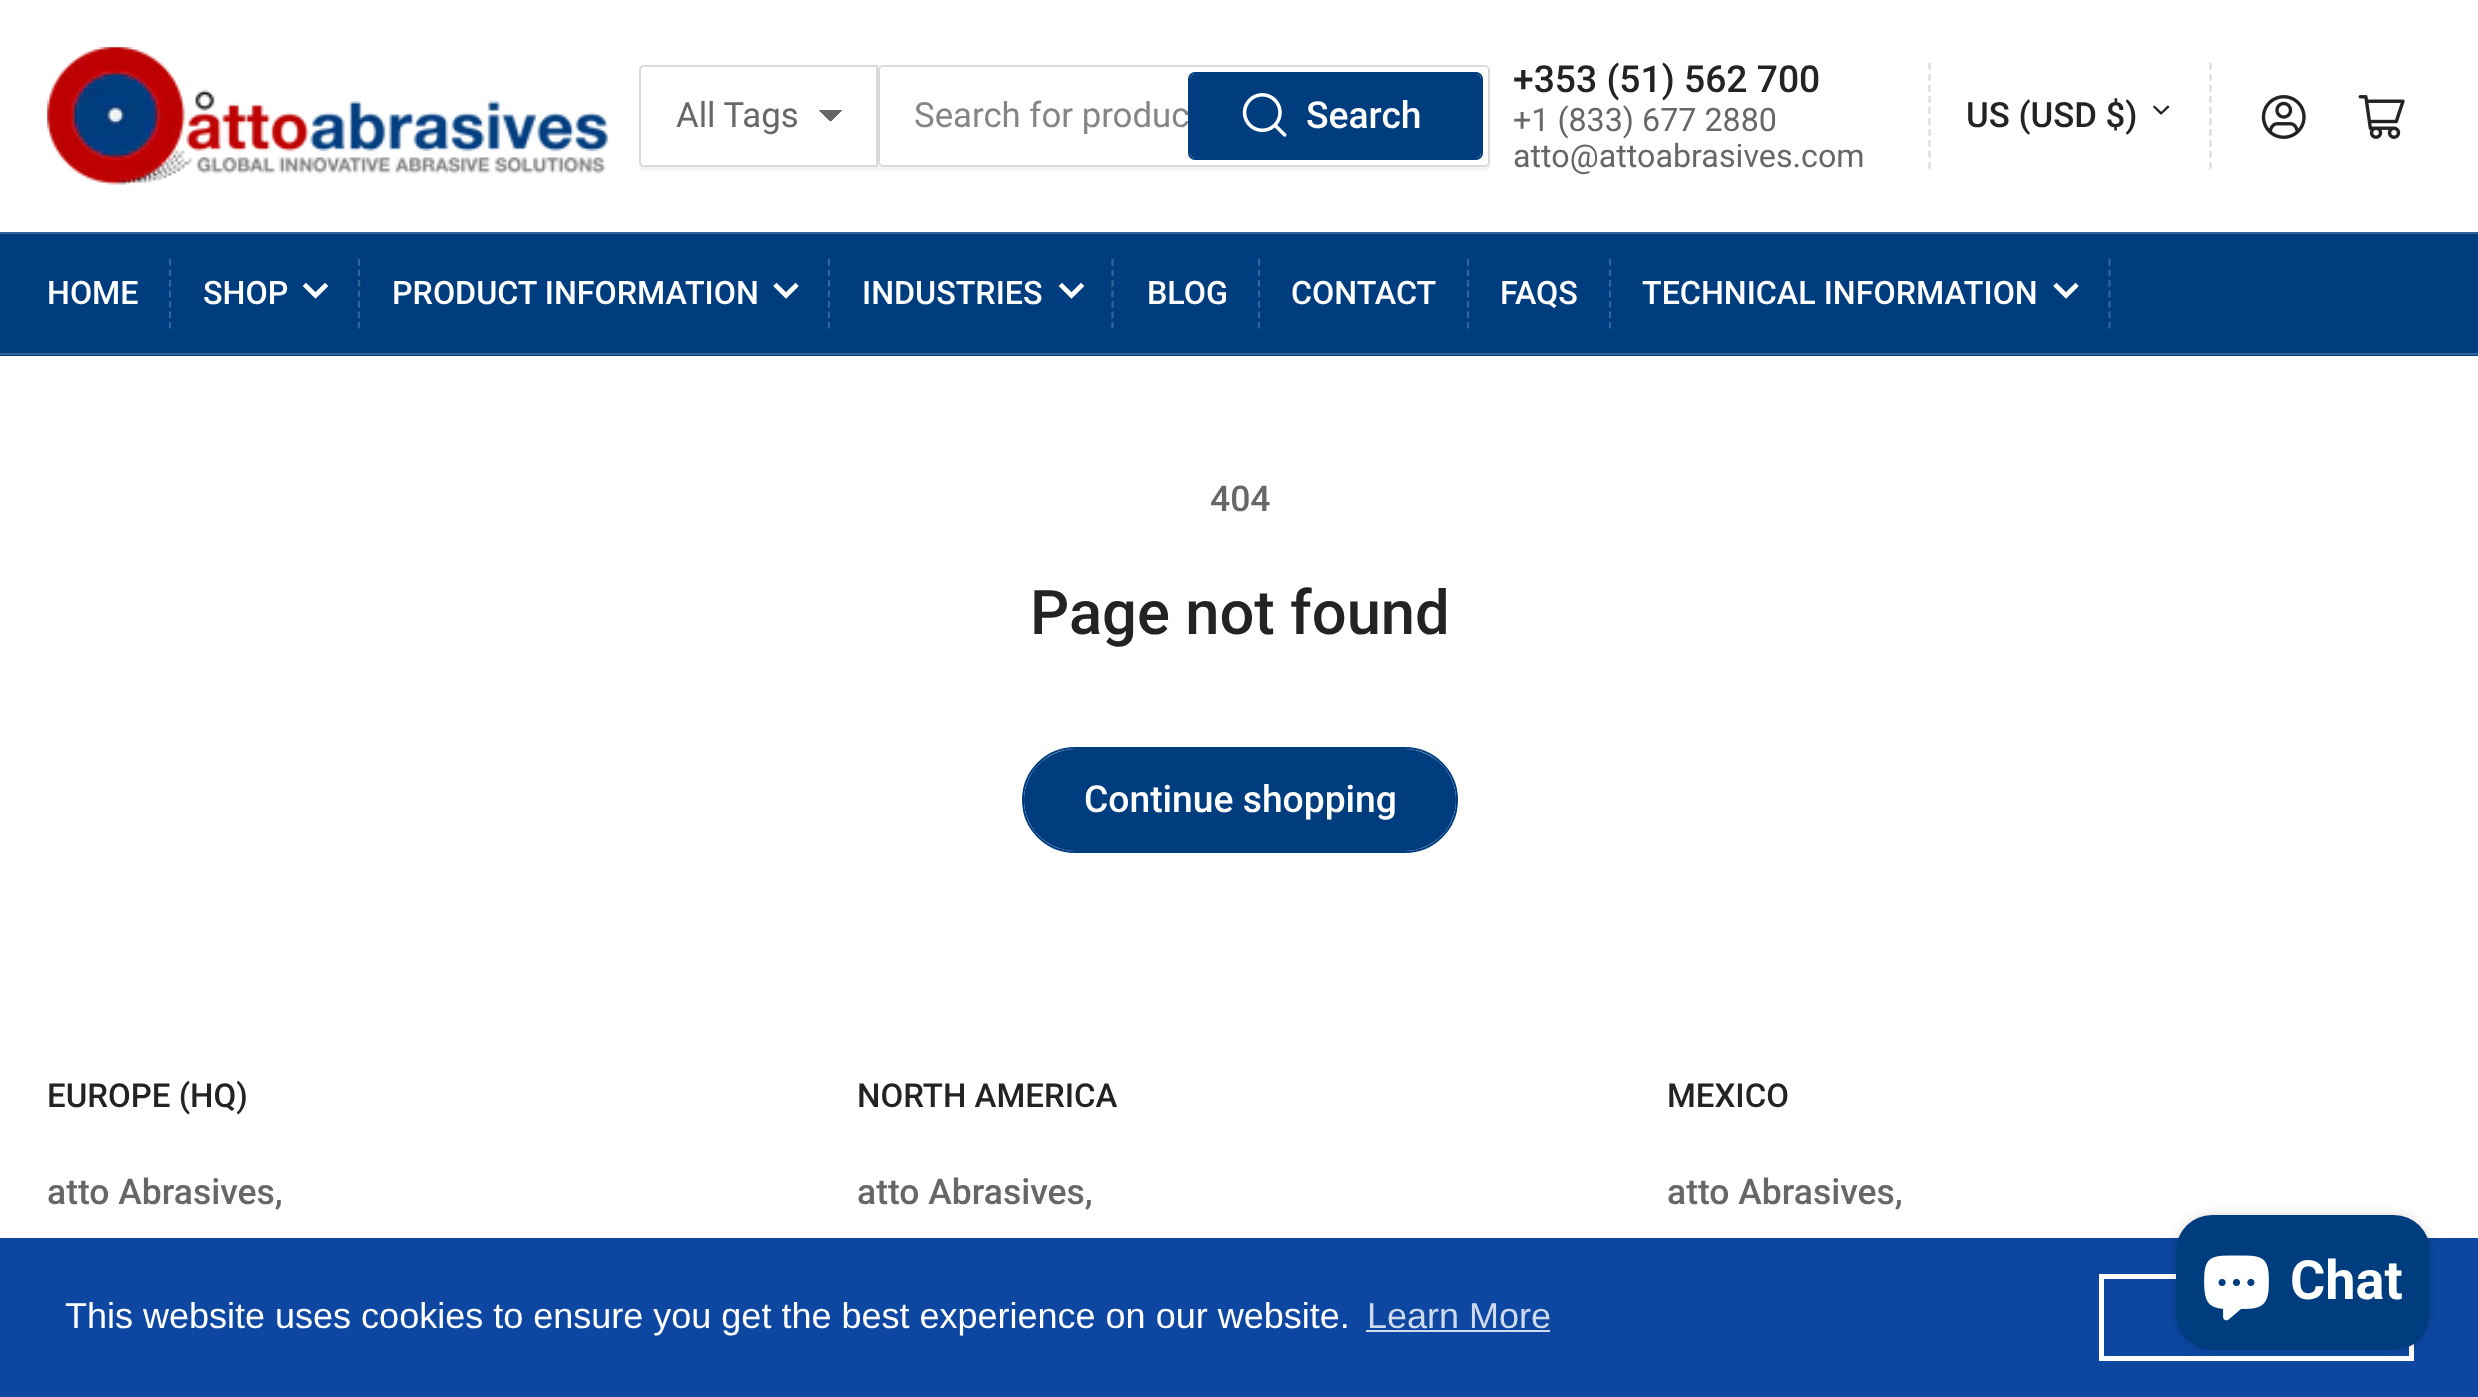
<svg xmlns="http://www.w3.org/2000/svg" width="2478" height="1397" viewBox="0 0 2478 1397">
  <defs>
    <linearGradient id="g1" gradientUnits="userSpaceOnUse" x1="830" y1="110" x2="842" y2="122"><stop offset="0.5" stop-color="rgb(103,103,103)"/><stop offset="0.5" stop-color="rgb(255,255,255)"/></linearGradient>
    <linearGradient id="g2" gradientUnits="userSpaceOnUse" x1="819" y1="122" x2="830" y2="110"><stop offset="0.5" stop-color="rgb(255,255,255)"/><stop offset="0.5" stop-color="rgb(103,103,103)"/></linearGradient>
  </defs>
  <rect width="100%" height="100%" fill="rgb(255,255,255)"/>
  <image x="47" y="47" width="562" height="138" href="pic1.png"/>
  <rect x="640" y="66" width="237" height="100" rx="4" fill="none" stroke="rgb(218,218,218)" stroke-width="2"/>
  <path d="M639 162V166C639 169 641 171 644 171H878V70V166H644C641 166 639 164 639 162Z" fill="rgba(218,218,218,0.3)"/>
  <path d="M644 65H878V167H644C641 167 639 165 639 162V70C639 67 641 65 644 65Z" fill="rgb(255,255,255)"/>
  <rect x="830" y="110" width="12" height="11" fill="url(#g1)"/>
  <rect x="819" y="110" width="11" height="11" fill="url(#g2)"/>
  <path d="M644 66H877V166H644C642 166 640 164 640 162V70C640 68 642 66 644 66Z" fill="none" stroke="rgb(218,218,218)" stroke-width="2"/>
  <text x="676" y="127" font-family="Roboto" font-size="34.75" fill="rgb(103,103,103)">All Tags</text>
  <path d="M878 164V166C878 169 880 171 883 171H1485C1488 171 1490 169 1490 166V75V73V162C1490 164 1487 166 1485 166H882C880 166 879 166 878 164Z" fill="rgb(244,244,244)"/>
  <rect x="879" y="66" width="610" height="100" rx="4" fill="rgb(255,255,255)" stroke="rgb(218,218,218)" stroke-width="2"/>
  <text x="914" y="127" font-family="Roboto" font-size="34.75" fill="rgb(133,133,133)">Search for produc</text>
  <rect x="1189" y="73" width="293" height="86" rx="6" fill="none" stroke="rgb(0,61,127)" stroke-width="2"/>
  <rect x="1190" y="74" width="291" height="84" rx="5" fill="rgb(0,61,127)"/>
  <image x="1242" y="93" width="45" height="44" href="pic2.png"/>
  <text x="1306" y="128" font-family="Roboto" font-size="37.25" font-weight="500" fill="rgb(255,255,255)">Search</text>
  <text x="1513" y="92" font-family="Roboto" font-size="37.25" font-weight="500" fill="rgb(35,35,35)">+353 (51) 562 700</text>
  <g font-family="Roboto" font-size="32.25" fill="rgb(103,103,103)">
    <text>
      <tspan x="1513" y="131">+1 (833) 677 2880</tspan>
      <tspan x="1513" y="167">atto@attoabrasives.com</tspan>
    </text>
  </g>
  <path d="M2210.5 63V169" fill="none" stroke="rgb(218,218,218)" stroke-width="2.2" stroke-dasharray="6.75 4.25"/>
  <path d="M1929.5 63V169" fill="none" stroke="rgb(218,218,218)" stroke-width="2.2" stroke-dasharray="6.75 4.25"/>
  <text x="1966" y="127" font-family="Roboto" font-size="34.75" font-weight="500" fill="rgb(35,35,35)">US (USD $)</text>
  <path d="M2155 106L2162 112.5C2162 113 2162 113.5 2162 114C2161.5 114.5 2160.5 114.5 2160 114L2153.5 107.5C2153 107 2153 106.5 2153.5 106C2154 105.5 2154.5 105.5 2155 106Z" fill="rgb(35,35,35)"/>
  <path d="M2160.5 112.5L2167 106C2167.5 105.5 2168.5 105.5 2169 106C2169.5 106.5 2169.5 107 2169 107.5L2162 114C2161.5 114.5 2161 114.5 2160.5 114C2160 113.5 2160 113 2160.5 112.5Z" fill="rgb(35,35,35)"/>
  <image x="2261" y="95" width="45" height="44" href="pic3.png"/>
  <image x="2358" y="95" width="47" height="44" href="pic4.png"/>
  <rect x="0" y="234" width="2478" height="122" fill="rgb(0,61,127)"/>
  <rect x="0" y="232" width="2478" height="2" fill="rgb(51,100,153)"/>
  <rect x="0" y="353" width="2478" height="2" fill="rgb(51,100,153)"/>
  <text x="47" y="304" font-family="Roboto" font-size="32.25" font-weight="500" fill="rgb(255,255,255)">HOME</text>
  <path d="M170 259V328.5" fill="none" stroke="rgb(51,100,153)" stroke-width="2.2" stroke-dasharray="6.75 3.76"/>
  <text x="203" y="304" font-family="Roboto" font-size="32.25" font-weight="500" fill="rgb(255,255,255)">SHOP</text>
  <path d="M325 286L315.5 295.5L306 286" fill="none" stroke="rgb(255,255,255)" stroke-width="4.7" stroke-linecap="square"/>
  <path d="M359 259V328.5" fill="none" stroke="rgb(51,100,153)" stroke-width="2.2" stroke-dasharray="6.75 3.76"/>
  <text x="392" y="304" font-family="Roboto" font-size="32.25" font-weight="500" fill="rgb(255,255,255)">PRODUCT INFORMATION</text>
  <path d="M795.5 286L786 295.5L776.5 286" fill="none" stroke="rgb(255,255,255)" stroke-width="4.7" stroke-linecap="square"/>
  <path d="M829 259V328.5" fill="none" stroke="rgb(51,100,153)" stroke-width="2.2" stroke-dasharray="6.75 3.76"/>
  <text x="862" y="304" font-family="Roboto" font-size="32.25" font-weight="500" fill="rgb(255,255,255)">INDUSTRIES</text>
  <path d="M1081 286L1071.5 295.5L1062 286" fill="none" stroke="rgb(255,255,255)" stroke-width="4.7" stroke-linecap="square"/>
  <path d="M1112.5 259V328.5" fill="none" stroke="rgb(51,100,153)" stroke-width="2.2" stroke-dasharray="6.75 3.76"/>
  <text x="1147" y="304" font-family="Roboto" font-size="32.25" font-weight="500" fill="rgb(255,255,255)">BLOG</text>
  <path d="M1259 259V328.5" fill="none" stroke="rgb(51,100,153)" stroke-width="2.2" stroke-dasharray="6.75 3.76"/>
  <text x="1291" y="304" font-family="Roboto" font-size="32.25" font-weight="500" fill="rgb(255,255,255)">CONTACT</text>
  <path d="M1468 259V328.5" fill="none" stroke="rgb(51,100,153)" stroke-width="2.2" stroke-dasharray="6.75 3.76"/>
  <text x="1500" y="304" font-family="Roboto" font-size="32.25" font-weight="500" fill="rgb(255,255,255)">FAQS</text>
  <path d="M1610 259V328.5" fill="none" stroke="rgb(51,100,153)" stroke-width="2.2" stroke-dasharray="6.75 3.76"/>
  <text x="1642" y="304" font-family="Roboto" font-size="32.25" font-weight="500" fill="rgb(255,255,255)">TECHNICAL INFORMATION</text>
  <path d="M2075.5 286L2066 295.5L2056.5 286" fill="none" stroke="rgb(255,255,255)" stroke-width="4.7" stroke-linecap="square"/>
  <path d="M2109.5 259V328.5" fill="none" stroke="rgb(51,100,153)" stroke-width="2.2" stroke-dasharray="6.75 3.76"/>
  <text x="1210" y="511" font-family="Roboto" font-size="35.5" font-weight="500" fill="rgb(103,103,103)">404</text>
  <text x="1030" y="634" font-family="Roboto" font-size="61.5" font-weight="500" fill="rgb(35,35,35)">Page not found</text>
  <rect x="1023" y="748" width="434" height="104" rx="52" fill="none" stroke="rgb(0,61,127)" stroke-width="2"/>
  <rect x="1024" y="749" width="432" height="102" rx="51" fill="rgb(0,61,127)"/>
  <text x="1084" y="812" font-family="Roboto" font-size="37.25" font-weight="500" fill="rgb(255,255,255)">Continue shopping</text>
  <text x="47" y="1107" font-family="Roboto" font-size="33" font-weight="500" fill="rgb(35,35,35)">EUROPE (HQ)</text>
  <text x="47" y="1204" font-family="Roboto" font-size="35.5" font-weight="500" fill="rgb(103,103,103)">atto Abrasives,</text>
  <text x="857" y="1107" font-family="Roboto" font-size="33" font-weight="500" fill="rgb(35,35,35)">NORTH AMERICA</text>
  <text x="857" y="1204" font-family="Roboto" font-size="35.5" font-weight="500" fill="rgb(103,103,103)">atto Abrasives,</text>
  <text x="1667" y="1107" font-family="Roboto" font-size="33" font-weight="500" fill="rgb(35,35,35)">MEXICO</text>
  <text x="1667" y="1204" font-family="Roboto" font-size="35.5" font-weight="500" fill="rgb(103,103,103)">atto Abrasives,</text>
  <rect x="0" y="1238" width="2478" height="159" fill="rgb(13,71,161)"/>
  <rect x="2101.5" y="1276.5" width="310" height="82" fill="none" stroke="rgb(255,255,255)" stroke-width="5"/>
  <rect x="2176" y="1215" width="254" height="135" rx="36" fill="rgba(0,0,0,0.15)" filter="blur(5.5px)"/>
  <rect x="2176" y="1215" width="254" height="135" rx="36" fill="rgb(0,61,127)"/>
  <image x="2204" y="1255" width="65" height="66" href="pic5.png"/>
  <text x="2290" y="1299" font-family="Roboto" font-size="54" font-weight="bold" fill="rgb(255,255,255)">Chat</text>
  <text x="65" y="1328" font-family="Liberation Sans" font-size="36" fill="rgb(255,255,255)">This website uses cookies to ensure you get the best experience on our website.</text>
  <text x="1367" y="1328" font-family="Liberation Sans" font-size="36" fill="rgb(207,218,236)">Learn More</text>
  <rect x="1366" y="1330" width="184" height="2" fill="rgb(207,218,236)"/>
</svg>
